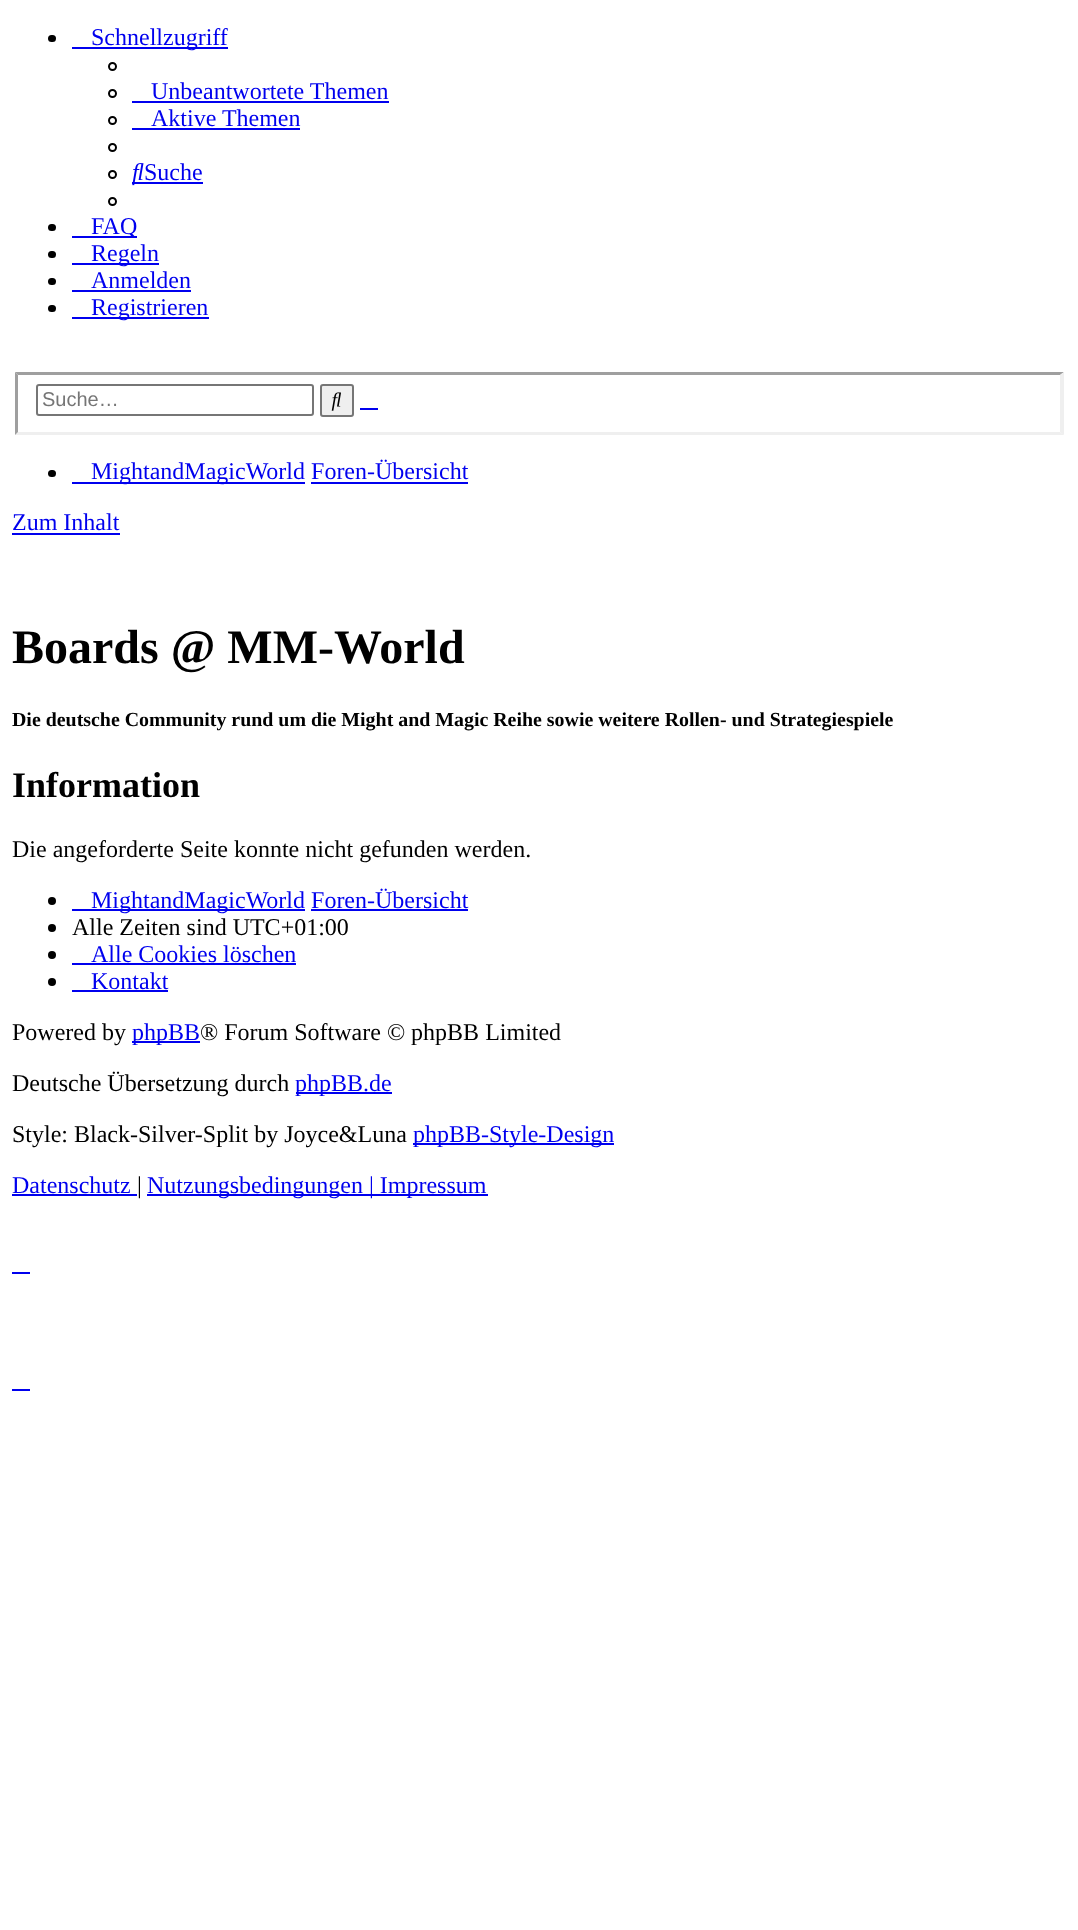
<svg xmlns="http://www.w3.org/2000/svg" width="1078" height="1930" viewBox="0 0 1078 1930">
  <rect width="100%" height="100%" fill="rgb(255,255,255)"/>
  <rect x="48" y="35" width="8" height="7" rx="3.5" fill="rgb(0,0,0)"/>
  <rect x="72" y="47" width="156" height="2" fill="rgb(0,0,238)"/>
  <text x="91" y="45" font-family="Liberation Serif" font-size="24" fill="rgb(0,0,238)">Schnellzugriff</text>
  <circle cx="112.5" cy="66.5" r="3.5" fill="none" stroke="rgb(0,0,0)" stroke-width="2"/>
  <circle cx="112.5" cy="93.5" r="3.5" fill="none" stroke="rgb(0,0,0)" stroke-width="2"/>
  <text x="151" y="99" font-family="Liberation Serif" font-size="24" fill="rgb(0,0,238)">Unbeantwortete Themen</text>
  <rect x="132" y="101" width="257" height="2" fill="rgb(0,0,238)"/>
  <circle cx="112.5" cy="120.5" r="3.5" fill="none" stroke="rgb(0,0,0)" stroke-width="2"/>
  <text x="151" y="126" font-family="Liberation Serif" font-size="24" fill="rgb(0,0,238)">Aktive Themen</text>
  <rect x="132" y="128" width="168" height="2" fill="rgb(0,0,238)"/>
  <circle cx="112.5" cy="147.5" r="3.5" fill="none" stroke="rgb(0,0,0)" stroke-width="2"/>
  <circle cx="112.5" cy="174.5" r="3.5" fill="none" stroke="rgb(0,0,0)" stroke-width="2"/>
  <rect x="132" y="182" width="71" height="2" fill="rgb(0,0,238)"/>
  <image x="132" y="163" width="12" height="23" href="pic1.png"/>
  <text x="144" y="180" font-family="Liberation Serif" font-size="24" fill="rgb(0,0,238)">Suche</text>
  <circle cx="112.5" cy="201.5" r="3.5" fill="none" stroke="rgb(0,0,0)" stroke-width="2"/>
  <rect x="48" y="224" width="8" height="7" rx="3.5" fill="rgb(0,0,0)"/>
  <rect x="72" y="236" width="65" height="2" fill="rgb(0,0,238)"/>
  <text x="91" y="234" font-family="Liberation Serif" font-size="24" fill="rgb(0,0,238)">FAQ</text>
  <rect x="48" y="251" width="8" height="7" rx="3.5" fill="rgb(0,0,0)"/>
  <rect x="72" y="263" width="87" height="2" fill="rgb(0,0,238)"/>
  <text x="91" y="261" font-family="Liberation Serif" font-size="24" fill="rgb(0,0,238)">Regeln</text>
  <rect x="48" y="278" width="8" height="7" rx="3.5" fill="rgb(0,0,0)"/>
  <text x="91" y="288" font-family="Liberation Serif" font-size="24" fill="rgb(0,0,238)">Anmelden</text>
  <rect x="72" y="290" width="119" height="2" fill="rgb(0,0,238)"/>
  <rect x="48" y="305" width="8" height="7" rx="3.5" fill="rgb(0,0,0)"/>
  <rect x="72" y="317" width="137" height="2" fill="rgb(0,0,238)"/>
  <text x="91" y="315" font-family="Liberation Serif" font-size="24" fill="rgb(0,0,238)">Registrieren</text>
  <path d="M15 372H1064L1060 375H18Z" fill="rgb(159,159,159)"/>
  <path d="M1064 372V435L1060 432V375Z" fill="rgb(239,239,239)"/>
  <path d="M1064 435H15L18 432H1060Z" fill="rgb(239,239,239)"/>
  <path d="M15 435V372L18 375V432Z" fill="rgb(159,159,159)"/>
  <rect x="37" y="385" width="276" height="30" rx="2" fill="none" stroke="rgb(118,118,118)" stroke-width="2"/>
  <text x="42" y="406" font-family="Liberation Sans" font-size="20" fill="rgb(117,117,117)">Suche…</text>
  <rect x="321" y="385" width="32" height="31" rx="2" fill="rgb(239,239,239)" stroke="rgb(118,118,118)" stroke-width="2"/>
  <image x="331" y="392" width="10" height="19" href="pic2.png"/>
  <rect x="360" y="408" width="18" height="2" fill="rgb(0,0,238)"/>
  <rect x="48" y="470" width="8" height="7" rx="3.5" fill="rgb(0,0,0)"/>
  <rect x="72" y="482" width="233" height="2" fill="rgb(0,0,238)"/>
  <text x="91" y="479" font-family="Liberation Serif" font-size="24" fill="rgb(0,0,238)">MightandMagicWorld Foren-Übersicht</text>
  <rect x="311" y="482" width="157" height="2" fill="rgb(0,0,238)"/>
  <text x="12" y="530" font-family="Liberation Serif" font-size="24" fill="rgb(0,0,238)">Zum Inhalt</text>
  <rect x="12" y="533" width="108" height="2" fill="rgb(0,0,238)"/>
  <text x="12" y="663" font-family="Liberation Serif" font-size="48" font-weight="bold" fill="rgb(0,0,0)">Boards @ MM-World</text>
  <text x="12" y="726" font-family="Liberation Serif" font-size="19.9" font-weight="bold" fill="rgb(0,0,0)">Die deutsche Community rund um die Might and Magic Reihe sowie weitere Rollen- und Strategiespiele</text>
  <text x="12" y="797" font-family="Liberation Serif" font-size="36" font-weight="bold" fill="rgb(0,0,0)">Information</text>
  <text x="12" y="857" font-family="Liberation Serif" font-size="24" fill="rgb(0,0,0)">Die angeforderte Seite konnte nicht gefunden werden.</text>
  <circle cx="52" cy="901" r="4" fill="rgb(0,0,0)"/>
  <rect x="72" y="909" width="233" height="2" fill="rgb(0,0,238)"/>
  <text x="91" y="908" font-family="Liberation Serif" font-size="24" fill="rgb(0,0,238)">MightandMagicWorld Foren-Übersicht</text>
  <rect x="311" y="909" width="157" height="2" fill="rgb(0,0,238)"/>
  <circle cx="52" cy="928" r="4" fill="rgb(0,0,0)"/>
  <text x="72" y="935" font-family="Liberation Serif" font-size="24" fill="rgb(0,0,0)">Alle Zeiten sind UTC+01:00</text>
  <circle cx="52" cy="955" r="4" fill="rgb(0,0,0)"/>
  <text x="91" y="962" font-family="Liberation Serif" font-size="24" fill="rgb(0,0,238)">Alle Cookies löschen</text>
  <rect x="72" y="963" width="224" height="2" fill="rgb(0,0,238)"/>
  <circle cx="52" cy="982" r="4" fill="rgb(0,0,0)"/>
  <text x="91" y="989" font-family="Liberation Serif" font-size="24" fill="rgb(0,0,238)">Kontakt</text>
  <rect x="72" y="990" width="96" height="2" fill="rgb(0,0,238)"/>
  <text x="12" y="1040" font-family="Liberation Serif" font-size="24" fill="rgb(0,0,0)">Powered by</text>
  <rect x="132" y="1041" width="68" height="2" fill="rgb(0,0,238)"/>
  <text x="132" y="1040" font-family="Liberation Serif" font-size="24" fill="rgb(0,0,238)">phpBB</text>
  <g font-family="Liberation Serif" font-size="24" fill="rgb(0,0,0)">
    <text x="200" y="1040">® Forum Software © phpBB Limited</text>
    <text x="12" y="1091">Deutsche Übersetzung durch</text>
  </g>
  <rect x="296" y="1092" width="96" height="2" fill="rgb(0,0,238)"/>
  <text x="295" y="1091" font-family="Liberation Serif" font-size="24" fill="rgb(0,0,238)">phpBB.de</text>
  <text x="12" y="1142" font-family="Liberation Serif" font-size="24" fill="rgb(0,0,0)">Style: Black-Silver-Split by Joyce&amp;Luna</text>
  <rect x="413" y="1143" width="201" height="2" fill="rgb(0,0,238)"/>
  <g font-family="Liberation Serif" font-size="24" fill="rgb(0,0,238)">
    <text x="413" y="1142">phpBB-Style-Design</text>
    <text x="12" y="1193">Datenschutz</text>
  </g>
  <rect x="12" y="1194" width="125" height="2" fill="rgb(0,0,238)"/>
  <text x="137" y="1193" font-family="Liberation Serif" font-size="24" fill="rgb(0,0,0)">|</text>
  <rect x="147" y="1194" width="216" height="2" fill="rgb(0,0,238)"/>
  <text x="147" y="1193" font-family="Liberation Serif" font-size="24" fill="rgb(0,0,238)">Nutzungsbedingungen</text>
  <rect x="363" y="1194" width="125" height="2" fill="rgb(0,0,238)"/>
  <text x="369" y="1193" font-family="Liberation Serif" font-size="24" fill="rgb(0,0,238)">| Impressum</text>
  <rect x="12" y="1272" width="18" height="2" fill="rgb(0,0,238)"/>
  <rect x="12" y="1389" width="18" height="2" fill="rgb(0,0,238)"/>
</svg>
